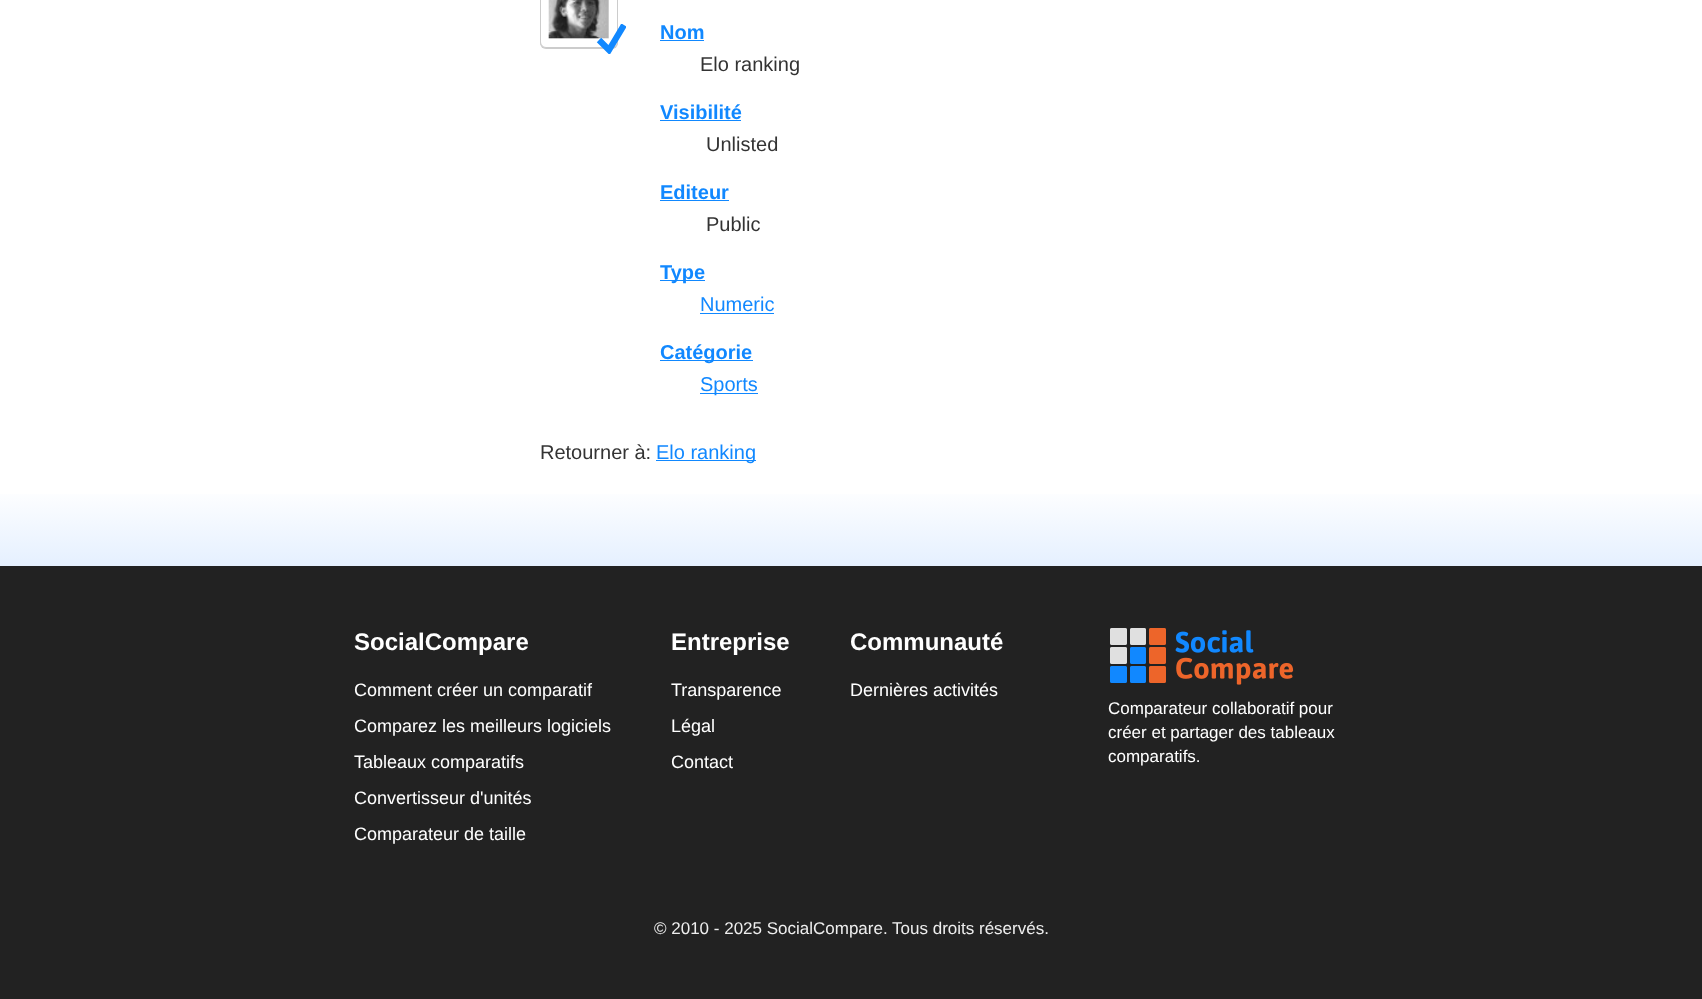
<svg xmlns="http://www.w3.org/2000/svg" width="1702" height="999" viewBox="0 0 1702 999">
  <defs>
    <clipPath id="clip1"><rect x="596" y="24" width="30" height="30"/></clipPath>
    <linearGradient id="g1" gradientUnits="userSpaceOnUse" x1="851" y1="566" x2="851" y2="486"><stop offset="0" stop-color="rgb(229,240,255)"/><stop offset="1" stop-color="rgb(255,255,255)"/></linearGradient>
  </defs>
  <rect width="100%" height="100%" fill="rgb(255,255,255)"/>
  <rect x="540" y="-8" width="78" height="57" rx="6" fill="rgb(204,204,204)" filter="blur(0.5px)"/>
  <rect x="540.5" y="-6.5" width="77" height="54" rx="5.5" fill="rgb(255,255,255)" stroke="rgb(204,204,204)"/>
  <image x="548" y="0" width="61" height="39" href="pic1.png"/>
  <g clip-path="url(#clip1)">
    <path d="M599 40L609 50L624 25" fill="none" stroke="rgb(17,136,255)" stroke-width="6.2"/>
  </g>
  <text x="660" y="39" font-family="Liberation Sans" font-size="20" font-weight="bold" fill="rgb(17,136,255)">Nom</text>
  <rect x="660" y="40" width="44" height="1" fill="rgb(17,136,255)"/>
  <text x="700" y="71" font-family="Liberation Sans" font-size="20" fill="rgb(51,51,51)">Elo ranking</text>
  <text x="660" y="119" font-family="Liberation Sans" font-size="20" font-weight="bold" fill="rgb(17,136,255)">Visibilité</text>
  <rect x="660" y="120" width="81" height="1" fill="rgb(17,136,255)"/>
  <text x="706" y="151" font-family="Liberation Sans" font-size="20" fill="rgb(51,51,51)">Unlisted</text>
  <text x="660" y="199" font-family="Liberation Sans" font-size="20" font-weight="bold" fill="rgb(17,136,255)">Editeur</text>
  <rect x="660" y="200" width="69" height="1" fill="rgb(17,136,255)"/>
  <text x="706" y="231" font-family="Liberation Sans" font-size="20" fill="rgb(51,51,51)">Public</text>
  <rect x="660" y="280" width="45" height="1" fill="rgb(17,136,255)"/>
  <text x="660" y="279" font-family="Liberation Sans" font-size="20" font-weight="bold" fill="rgb(17,136,255)">Type</text>
  <text x="700" y="311" font-family="Liberation Sans" font-size="20" fill="rgb(17,136,255)">Numeric</text>
  <rect x="700" y="313" width="74" height="1" fill="rgb(17,136,255)"/>
  <rect x="660" y="360" width="93" height="1" fill="rgb(17,136,255)"/>
  <text x="660" y="359" font-family="Liberation Sans" font-size="20" font-weight="bold" fill="rgb(17,136,255)">Catégorie</text>
  <rect x="700" y="393" width="58" height="1" fill="rgb(17,136,255)"/>
  <text x="700" y="391" font-family="Liberation Sans" font-size="20" fill="rgb(17,136,255)">Sports</text>
  <text x="540" y="459" font-family="Liberation Sans" font-size="20" fill="rgb(51,51,51)">Retourner à:</text>
  <rect x="656" y="460" width="100" height="1" fill="rgb(17,136,255)"/>
  <text x="656" y="459" font-family="Liberation Sans" font-size="20" fill="rgb(17,136,255)">Elo ranking</text>
  <rect x="0" y="566" width="1702" height="433" fill="rgb(34,34,34)"/>
  <rect x="0" y="494" width="1702" height="72" fill="url(#g1)"/>
  <text x="354" y="650" font-family="Liberation Sans" font-size="24" font-weight="bold" fill="rgb(255,255,255)">SocialCompare</text>
  <g font-family="Liberation Sans" font-size="18" fill="rgb(255,255,255)">
    <text x="354" y="696">Comment créer un comparatif</text>
    <text x="354" y="732">Comparez les meilleurs logiciels</text>
    <text x="354" y="768">Tableaux comparatifs</text>
    <text x="354" y="804">Convertisseur d'unités</text>
    <text x="354" y="840">Comparateur de taille</text>
  </g>
  <text x="671" y="650" font-family="Liberation Sans" font-size="24" font-weight="bold" fill="rgb(255,255,255)">Entreprise</text>
  <g font-family="Liberation Sans" font-size="18" fill="rgb(255,255,255)">
    <text x="671" y="696">Transparence</text>
    <text x="671" y="732">Légal</text>
    <text x="671" y="768">Contact</text>
  </g>
  <text x="850" y="650" font-family="Liberation Sans" font-size="24" font-weight="bold" fill="rgb(255,255,255)">Communauté</text>
  <text x="850" y="696" font-family="Liberation Sans" font-size="18" fill="rgb(255,255,255)">Dernières activités</text>
  <image x="1110" y="628" width="184" height="57" href="pic2.png"/>
  <g font-family="Liberation Sans" font-size="17" fill="rgb(255,255,255)">
    <text>
      <tspan x="1108" y="714">Comparateur collaboratif pour</tspan>
      <tspan x="1108" y="738">créer et partager des tableaux</tspan>
      <tspan x="1108" y="762">comparatifs.</tspan>
    </text>
  </g>
  <text x="654" y="934" font-family="Liberation Sans" font-size="17" fill="rgb(238,238,238)">© 2010 - 2025 SocialCompare. Tous droits réservés.</text>
</svg>
